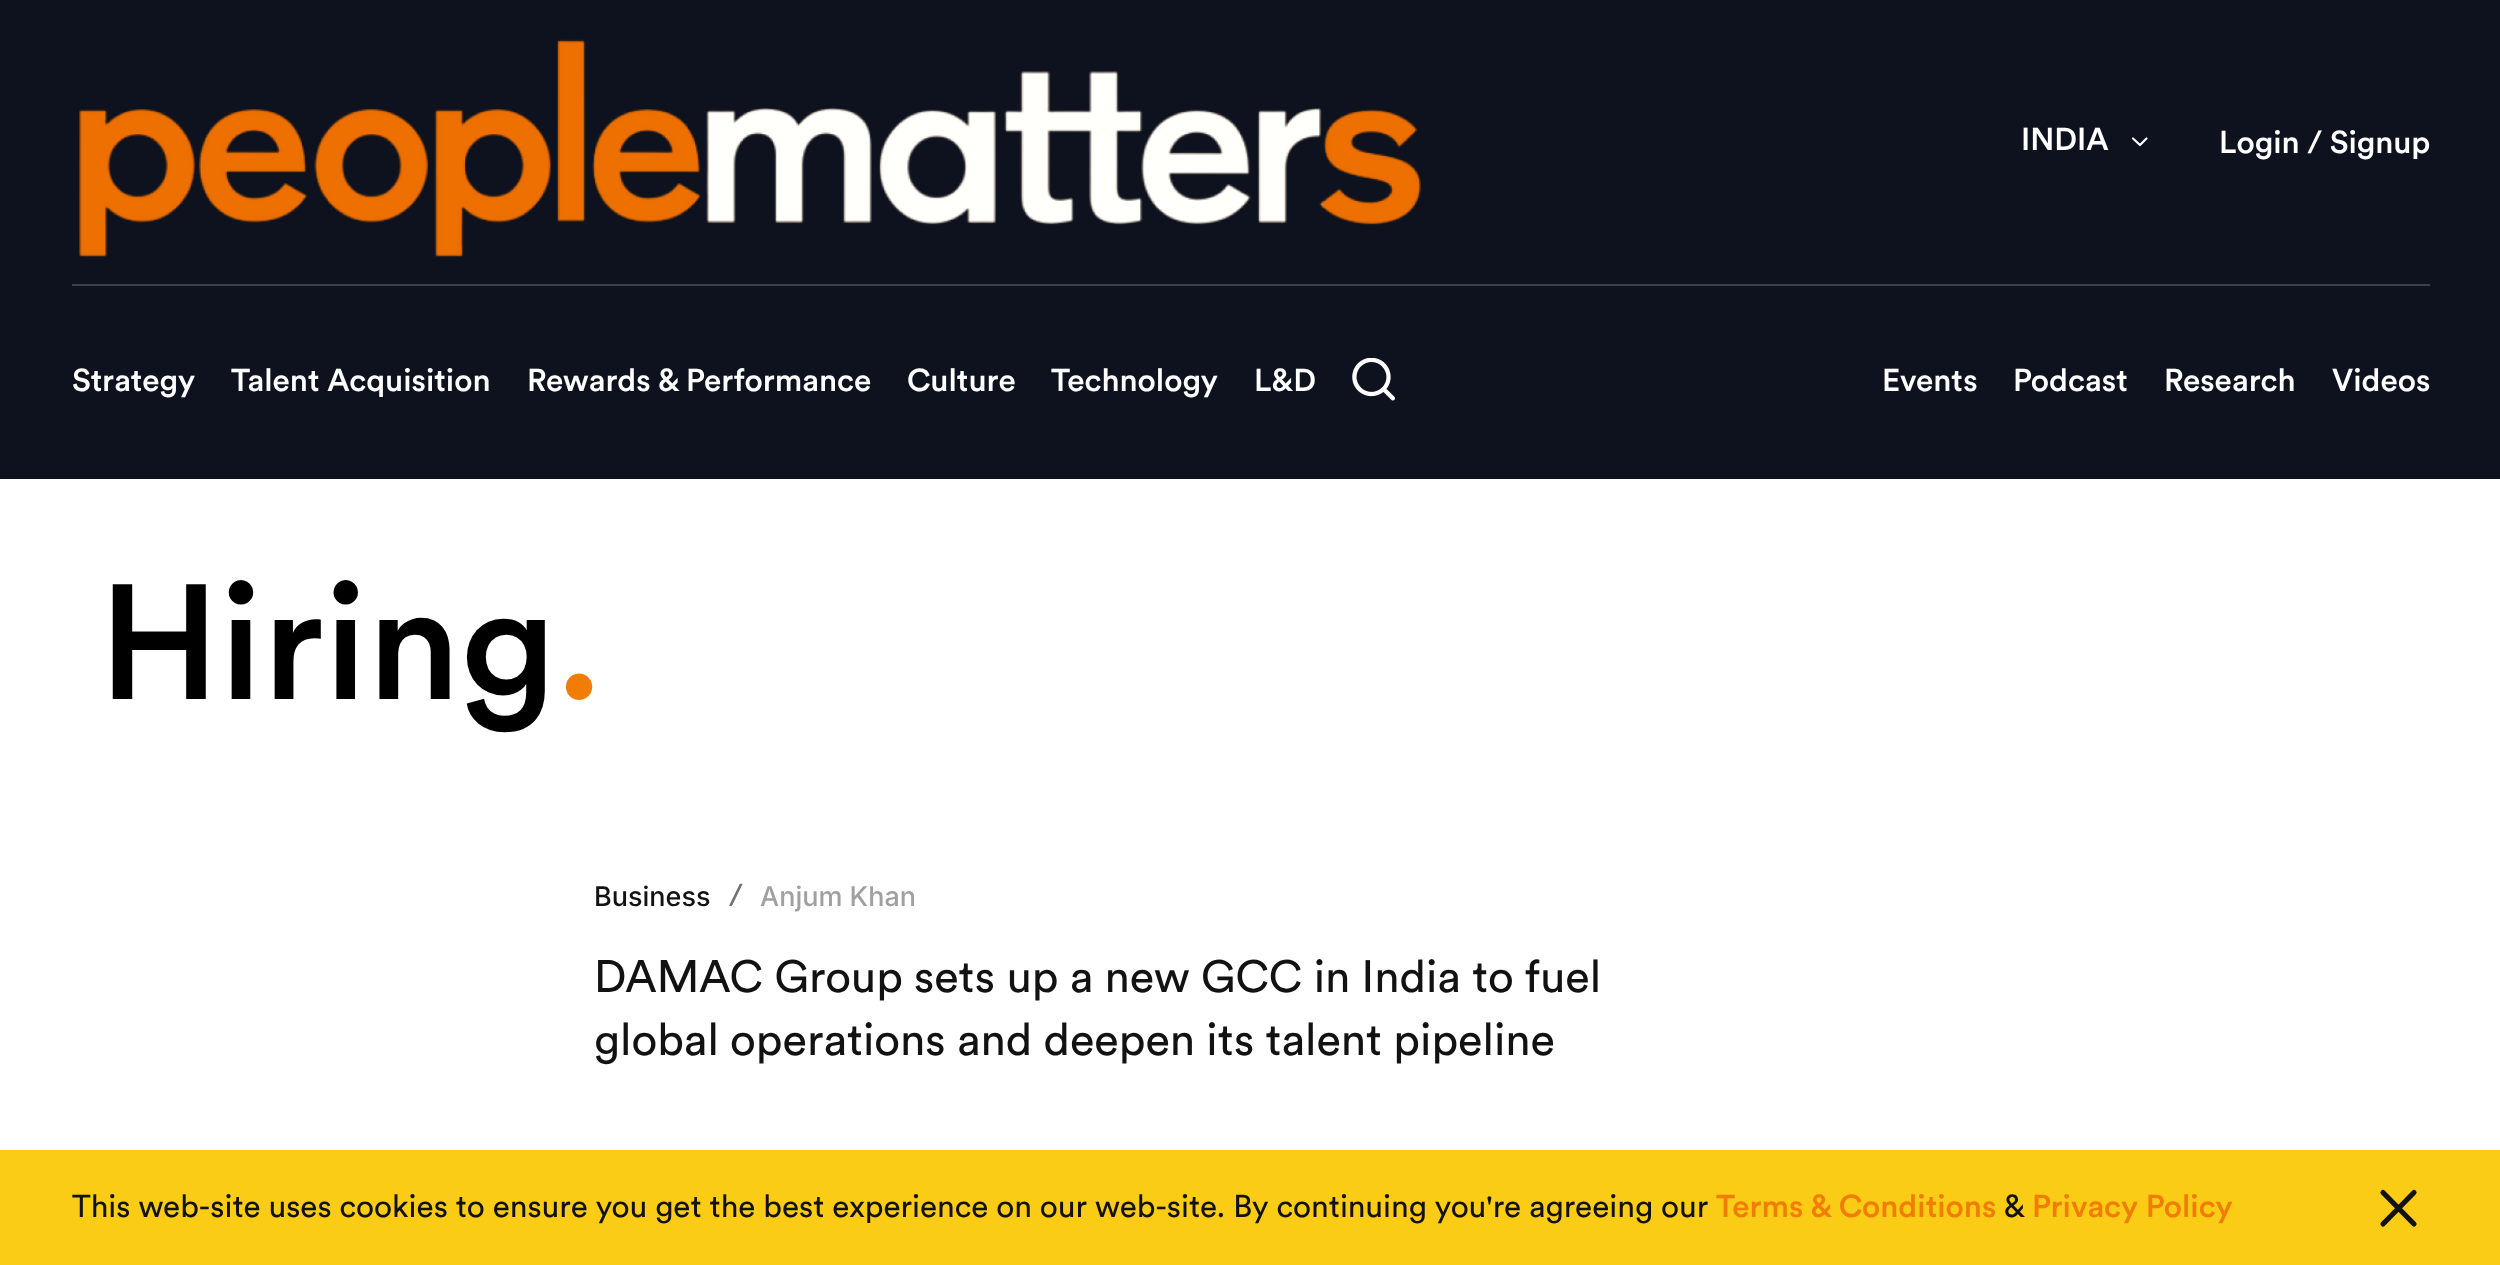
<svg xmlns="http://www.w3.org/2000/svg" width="2500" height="1265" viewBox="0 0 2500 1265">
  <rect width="100%" height="100%" fill="rgb(255,255,255)"/>
  <rect x="0" y="0" width="2500" height="479" fill="rgb(13,18,30)"/>
  <image x="79" y="39" width="1342" height="219" href="pic1.png"/>
  <text x="2021" y="150" font-family="Circular" font-size="31.5" font-weight="500" fill="rgb(255,255,255)">INDIA</text>
  <path d="M2133 138.5L2140 145L2146.5 138.5" fill="none" stroke="rgb(255,255,255)" stroke-width="2.2" stroke-linecap="round" stroke-linejoin="round"/>
  <text x="2219" y="153" font-family="Circular" font-size="31.5" font-weight="500" fill="rgb(255,255,255)">Login / Signup</text>
  <rect x="72" y="284" width="2358" height="2" fill="rgb(61,65,75)"/>
  <g font-family="Circular" font-size="31.5" font-weight="500" fill="rgb(255,255,255)">
    <text x="72" y="391">Strategy</text>
    <text x="231" y="391">Talent Acquisition</text>
    <text x="527" y="391">Rewards &amp; Performance</text>
    <text x="907" y="391">Culture</text>
    <text x="1051" y="391">Technology</text>
    <text x="1254" y="391">L&amp;D</text>
  </g>
  <image x="1352" y="358" width="43" height="43" href="pic2.png"/>
  <g font-family="Circular" font-size="31.5" font-weight="500" fill="rgb(255,255,255)">
    <text x="1882" y="391">Events</text>
    <text x="2013" y="391">Podcast</text>
    <text x="2164" y="391">Research</text>
    <text x="2332" y="391">Videos</text>
  </g>
  <text x="99" y="699" font-family="Circular" font-size="162" font-weight="500" fill="rgb(0,0,0)">Hiring</text>
  <text x="555" y="699" font-family="Circular" font-size="162" font-weight="500" fill="rgb(241,124,6)">.</text>
  <text x="594" y="906" font-family="Inter" font-size="27" font-weight="500" fill="rgb(18,18,18)">Business</text>
  <text x="729" y="906" font-family="Circular" font-size="31.5" fill="rgb(113,113,113)">/</text>
  <text x="760" y="906" font-family="Inter" font-size="27" font-weight="500" fill="rgb(160,160,160)">Anjum Khan</text>
  <g font-family="Circular" font-size="45" fill="rgb(18,18,18)">
    <text>
      <tspan x="594" y="992">DAMAC Group sets up a new GCC in India to fuel</tspan>
      <tspan x="594" y="1055">global operations and deepen its talent pipeline</tspan>
    </text>
  </g>
  <rect x="0" y="1150" width="2500" height="115" fill="rgb(250,204,21)"/>
  <text x="72" y="1217" font-family="Circular" font-size="31.5" fill="rgb(18,18,18)">This web-site uses cookies to ensure you get the best experience on our web-site. By continuing you're agreeing our</text>
  <text x="1716" y="1217" font-family="Circular" font-size="31.5" font-weight="500" fill="rgb(241,124,6)">Terms &amp; Conditions</text>
  <text x="2003" y="1217" font-family="Circular" font-size="31.5" fill="rgb(18,18,18)">&amp;</text>
  <text x="2032" y="1217" font-family="Circular" font-size="31.5" font-weight="500" fill="rgb(241,124,6)">Privacy Policy</text>
  <path d="M2414 1192.5L2383 1224M2383 1192.5L2414 1224" fill="none" stroke="rgb(18,18,18)" stroke-width="5.2" stroke-linecap="round" stroke-linejoin="round"/>
</svg>
